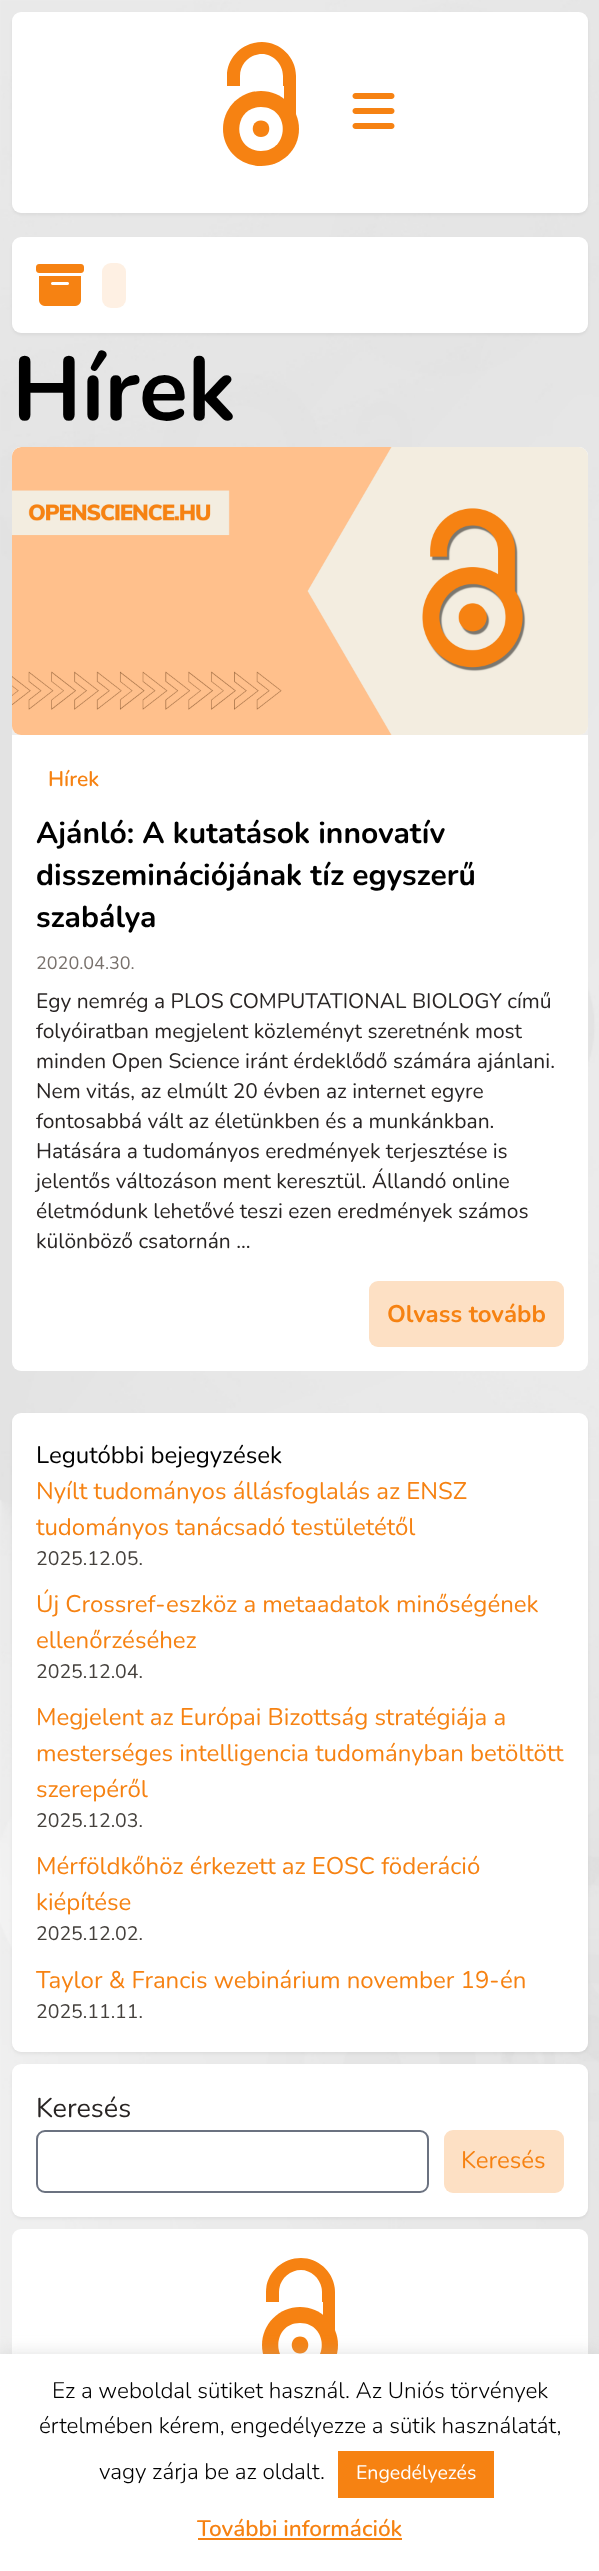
<svg xmlns="http://www.w3.org/2000/svg" width="599" height="2571" viewBox="0 0 599 2571">
  <rect width="100%" height="100%" fill="rgb(255,255,255)"/>
  <image x="0" y="0" width="599" height="2354" href="pic1.png"/>
  <rect x="12" y="14" width="576" height="201" rx="9" fill="rgba(0,0,0,0.05)" filter="blur(1.5px)"/>
  <rect x="12" y="12" width="576" height="201" rx="9" fill="rgb(255,255,255)"/>
  <path d="M261 91C240 91 223 108 223 129C223 150 240 166 261 166C282 166 299 150 299 129C299 108 282 91 261 91Z" fill="rgb(246,130,18)"/>
  <path d="M262 42C243 42 227 57 227 76V86H296V76C296 57 280 42 262 42ZM262 54C250 54 240 64 240 76V86H283V76C283 64 273 54 262 54Z" fill="rgb(246,130,18)" fill-rule="evenodd"/>
  <rect x="284" y="86" width="12" height="28" fill="rgb(246,130,18)"/>
  <path d="M261 107C232 107 232 151 261 151C290 151 290 107 261 107Z" fill="rgb(255,255,255)"/>
  <path d="M261 120.5C250 120.5 250 137 261 137C272 137 272 120.5 261 120.5Z" fill="rgb(246,130,18)"/>
  <image x="352" y="93" width="43" height="36" href="pic2.png"/>
  <rect x="12" y="239" width="576" height="96" rx="9" fill="rgba(0,0,0,0.05)" filter="blur(1.5px)"/>
  <rect x="12" y="237" width="576" height="96" rx="9" fill="rgb(255,255,255)"/>
  <image x="36" y="264" width="48" height="42" href="pic3.png"/>
  <rect x="102" y="263" width="24" height="45" rx="9" fill="rgb(254,240,227)"/>
  <text x="12" y="420" font-family="Nunito" font-size="90" font-weight="bold" fill="rgb(0,0,0)">Hírek</text>
  <rect x="12" y="447" width="576" height="924" rx="9" fill="rgb(255,255,255)"/>
  <path d="M21 447H579C584 447 588 451 588 456V735H12V456C12 451 16 447 21 447Z" fill="rgba(231,229,228,0.7)"/>
  <rect x="12" y="447" width="576" height="288" rx="9" fill="rgb(245,245,244)"/>
  <image x="12" y="447" width="576" height="288" href="pic4.png"/>
  <text x="48" y="786" font-family="Nunito" font-size="21" font-weight="600" fill="rgb(246,130,18)">Hírek</text>
  <g font-family="Nunito" font-size="30" font-weight="bold" fill="rgb(0,0,0)">
    <text>
      <tspan x="36" y="843">Ajánló: A kutatások innovatív</tspan>
      <tspan x="36" y="885">disszeminációjának tíz egyszerű</tspan>
      <tspan x="36" y="927">szabálya</tspan>
    </text>
  </g>
  <text x="36" y="969" font-family="Nunito" font-size="18" fill="rgb(120,113,108)">2020.04.30.</text>
  <g font-family="Nunito" font-size="21" fill="rgb(41,37,36)">
    <text>
      <tspan x="36" y="1008">Egy nemrég a PLOS COMPUTATIONAL BIOLOGY című</tspan>
      <tspan x="36" y="1038">folyóiratban megjelent közleményt szeretnénk most</tspan>
      <tspan x="36" y="1068">minden Open Science iránt érdeklődő számára ajánlani.</tspan>
      <tspan x="36" y="1098">Nem vitás, az elmúlt 20 évben az internet egyre</tspan>
      <tspan x="36" y="1128">fontosabbá vált az életünkben és a munkánkban.</tspan>
      <tspan x="36" y="1158">Hatására a tudományos eredmények terjesztése is</tspan>
      <tspan x="36" y="1188">jelentős változáson ment keresztül. Állandó online</tspan>
      <tspan x="36" y="1218">életmódunk lehetővé teszi ezen eredmények számos</tspan>
      <tspan x="36" y="1248">különböző csatornán ...</tspan>
    </text>
  </g>
  <rect x="369" y="1281" width="195" height="66" rx="9" fill="rgb(253,224,196)"/>
  <text x="387" y="1322" font-family="Nunito" font-size="24" font-weight="bold" fill="rgb(246,130,18)">Olvass tovább</text>
  <rect x="12" y="1415" width="576" height="639" rx="9" fill="rgba(0,0,0,0.05)" filter="blur(1.5px)"/>
  <rect x="12" y="1413" width="576" height="639" rx="9" fill="rgb(255,255,255)"/>
  <text x="36" y="1463" font-family="Nunito" font-size="24" fill="rgb(0,0,0)">Legutóbbi bejegyzések</text>
  <g font-family="Nunito" font-size="24" fill="rgb(246,130,18)">
    <text>
      <tspan x="36" y="1499">Nyílt tudományos állásfoglalás az ENSZ</tspan>
      <tspan x="36" y="1535">tudományos tanácsadó testületétől</tspan>
    </text>
  </g>
  <text x="36" y="1565" font-family="Nunito" font-size="19.5" fill="rgb(68,64,60)">2025.12.05.</text>
  <g font-family="Nunito" font-size="24" fill="rgb(246,130,18)">
    <text>
      <tspan x="36" y="1612">Új Crossref-eszköz a metaadatok minőségének</tspan>
      <tspan x="36" y="1648">ellenőrzéséhez</tspan>
    </text>
  </g>
  <text x="36" y="1678" font-family="Nunito" font-size="19.5" fill="rgb(68,64,60)">2025.12.04.</text>
  <g font-family="Nunito" font-size="24" fill="rgb(246,130,18)">
    <text>
      <tspan x="36" y="1725">Megjelent az Európai Bizottság stratégiája a</tspan>
      <tspan x="36" y="1761">mesterséges intelligencia tudományban betöltött</tspan>
      <tspan x="36" y="1797">szerepéről</tspan>
    </text>
  </g>
  <text x="36" y="1827" font-family="Nunito" font-size="19.5" fill="rgb(68,64,60)">2025.12.03.</text>
  <g font-family="Nunito" font-size="24" fill="rgb(246,130,18)">
    <text>
      <tspan x="36" y="1874">Mérföldkőhöz érkezett az EOSC föderáció</tspan>
      <tspan x="36" y="1910">kiépítése</tspan>
    </text>
  </g>
  <text x="36" y="1940" font-family="Nunito" font-size="19.5" fill="rgb(68,64,60)">2025.12.02.</text>
  <text x="36" y="1988" font-family="Nunito" font-size="24" fill="rgb(246,130,18)">Taylor &amp; Francis webinárium november 19-én</text>
  <text x="36" y="2018" font-family="Nunito" font-size="19.5" fill="rgb(68,64,60)">2025.11.11.</text>
  <rect x="12" y="2066" width="576" height="153" rx="9" fill="rgba(0,0,0,0.05)" filter="blur(1.5px)"/>
  <rect x="12" y="2064" width="576" height="153" rx="9" fill="rgb(255,255,255)"/>
  <text x="36" y="2117" font-family="Nunito" font-size="27" fill="rgb(41,37,36)">Keresés</text>
  <rect x="37" y="2131" width="391" height="61" rx="8" fill="none" stroke="rgb(107,114,128)" stroke-width="2"/>
  <rect x="444" y="2130" width="120" height="63" rx="9" fill="rgb(253,224,196)"/>
  <text x="461" y="2168" font-family="Nunito" font-size="24" fill="rgb(246,130,18)">Keresés</text>
  <rect x="12" y="2229" width="576" height="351" rx="9" fill="rgb(255,255,255)"/>
  <path d="M300 2307C279 2307 262 2324 262 2345C262 2366 279 2383 300 2383C321 2383 338 2366 338 2345C338 2324 321 2307 300 2307Z" fill="rgb(246,130,18)"/>
  <path d="M301 2258C282 2258 266 2273 266 2292V2302H335V2292C335 2273 319 2258 301 2258ZM301 2270C289 2270 279 2280 279 2292V2302H322V2292C322 2280 312 2270 301 2270Z" fill="rgb(246,130,18)" fill-rule="evenodd"/>
  <rect x="323" y="2302" width="12" height="28" fill="rgb(246,130,18)"/>
  <path d="M300 2323C271 2323 271 2367 300 2367C329 2367 329 2323 300 2323Z" fill="rgb(255,255,255)"/>
  <path d="M300 2336.5C289 2336.5 289 2353.5 300 2353.5C311 2353.5 311 2336.5 300 2336.5Z" fill="rgb(246,130,18)"/>
  <rect x="0" y="2352" width="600" height="218" fill="rgba(172,171,171,0.3)" filter="blur(7.5px)"/>
  <rect x="0" y="2354" width="599" height="217" fill="rgb(255,255,255)"/>
  <g font-family="Nunito" font-size="22.5" font-weight="300" fill="rgb(0,0,0)">
    <text x="52" y="2398">Ez a weboldal sütiket használ. Az Uniós törvények</text>
    <text x="39" y="2433">értelmében kérem, engedélyezze a sütik használatát,</text>
    <text x="99" y="2479">vagy zárja be az oldalt.</text>
  </g>
  <rect x="338" y="2451" width="156" height="47" fill="rgb(246,130,18)"/>
  <text x="356" y="2479" font-family="Nunito" font-size="19.5" fill="rgb(255,255,255)">Engedélyezés</text>
  <text x="197" y="2536" font-family="Nunito" font-size="22.5" font-weight="600" fill="rgb(246,130,18)">További információk</text>
  <rect x="198" y="2538" width="204" height="2" fill="rgb(246,130,18)"/>
</svg>
